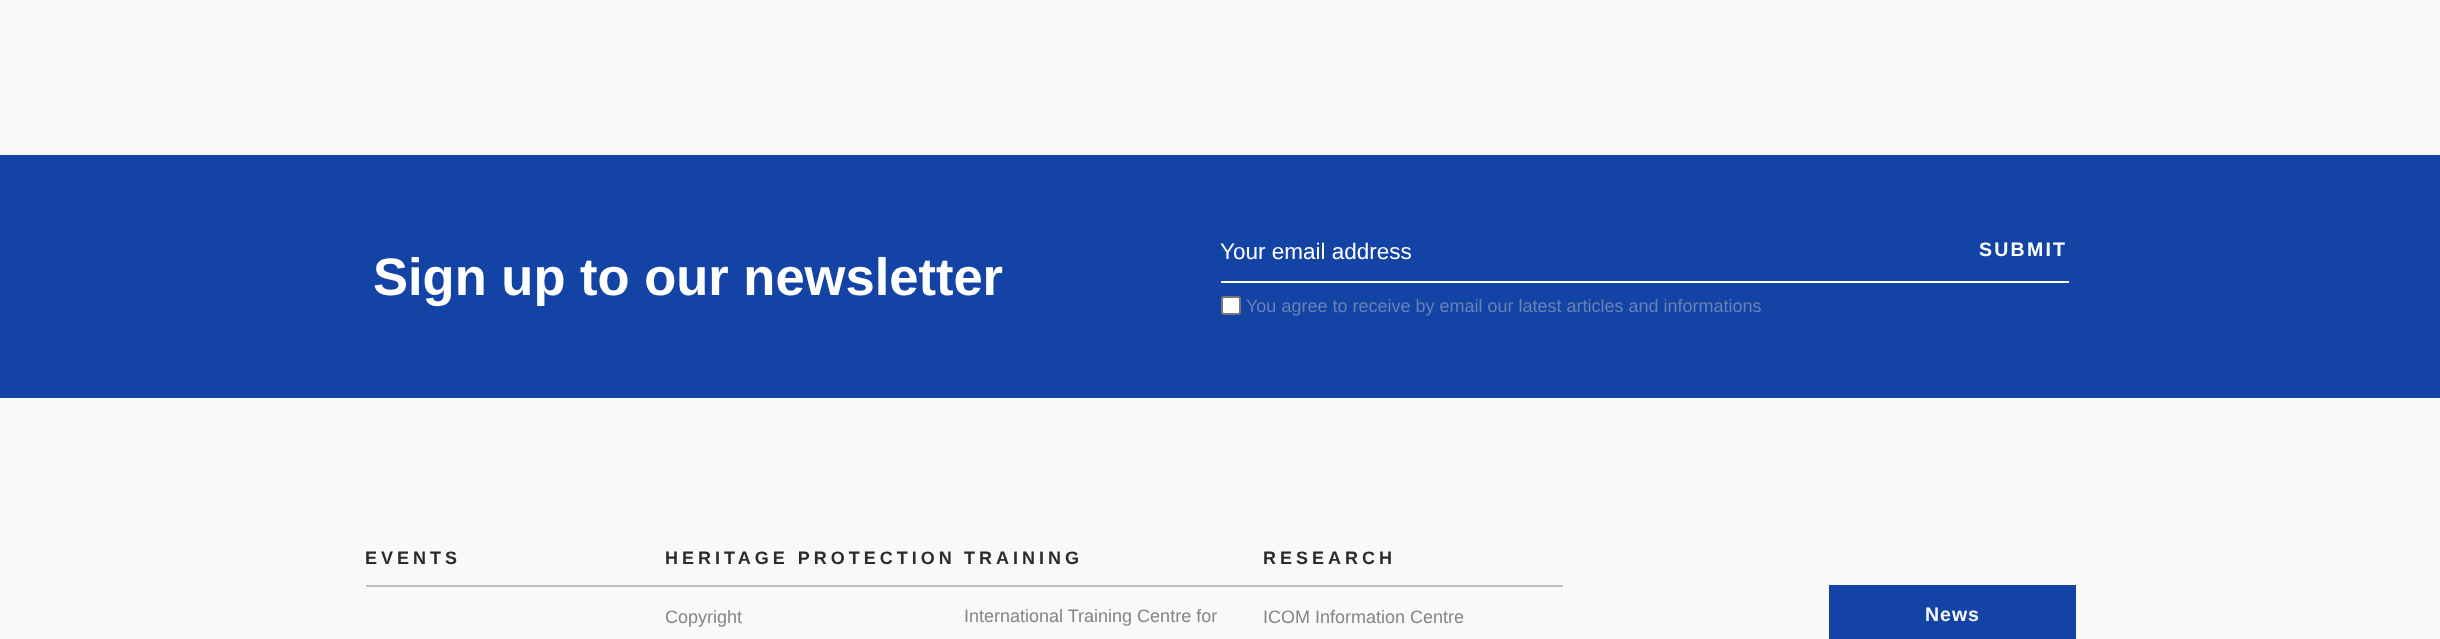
<svg xmlns="http://www.w3.org/2000/svg" width="2440" height="639" viewBox="0 0 2440 639">
  <rect width="100%" height="100%" fill="rgb(249,249,249)"/>
  <rect x="0" y="155" width="2440" height="243" fill="rgb(19,67,165)"/>
  <text x="373" y="295" font-family="Liberation Sans" font-size="52.5" font-weight="bold" fill="rgb(255,255,255)">Sign up to our newsletter</text>
  <rect x="1221" y="281" width="848" height="2" fill="rgb(255,255,255)"/>
  <text x="1220" y="259" font-family="Liberation Sans" font-size="22.5" fill="rgb(255,255,255)">Your email address</text>
  <rect x="1222" y="297" width="18" height="17" rx="2" fill="rgb(255,255,255)" stroke="rgb(118,118,118)" stroke-width="2"/>
  <text x="1246" y="312" font-family="Liberation Sans" font-size="18" fill="rgb(104,130,180)">You agree to receive by email our latest articles and informations</text>
  <text x="1979" y="256" font-family="Liberation Sans" font-size="19.5" font-weight="bold" letter-spacing="2.25" fill="rgb(255,255,255)">SUBMIT</text>
  <text x="365" y="564" font-family="Liberation Sans" font-size="18" font-weight="bold" letter-spacing="4" fill="rgb(43,43,43)">EVENTS</text>
  <rect x="366" y="585" width="1197" height="2" fill="rgb(190,190,190)"/>
  <text x="665" y="564" font-family="Liberation Sans" font-size="18" font-weight="bold" letter-spacing="4" fill="rgb(43,43,43)">HERITAGE PROTECTION</text>
  <text x="665" y="623" font-family="Liberation Sans" font-size="18" fill="rgb(133,133,133)">Copyright</text>
  <text x="964" y="564" font-family="Liberation Sans" font-size="18" font-weight="bold" letter-spacing="4" fill="rgb(43,43,43)">TRAINING</text>
  <text x="964" y="622" font-family="Liberation Sans" font-size="18" fill="rgb(133,133,133)">International Training Centre for</text>
  <text x="1263" y="564" font-family="Liberation Sans" font-size="18" font-weight="bold" letter-spacing="4" fill="rgb(43,43,43)">RESEARCH</text>
  <text x="1263" y="623" font-family="Liberation Sans" font-size="18" fill="rgb(133,133,133)">ICOM Information Centre</text>
  <rect x="1829" y="585" width="247" height="54" fill="rgb(19,67,165)"/>
  <text x="1925" y="621" font-family="Liberation Sans" font-size="19.5" font-weight="bold" letter-spacing="1" fill="rgb(249,249,249)">News</text>
</svg>
